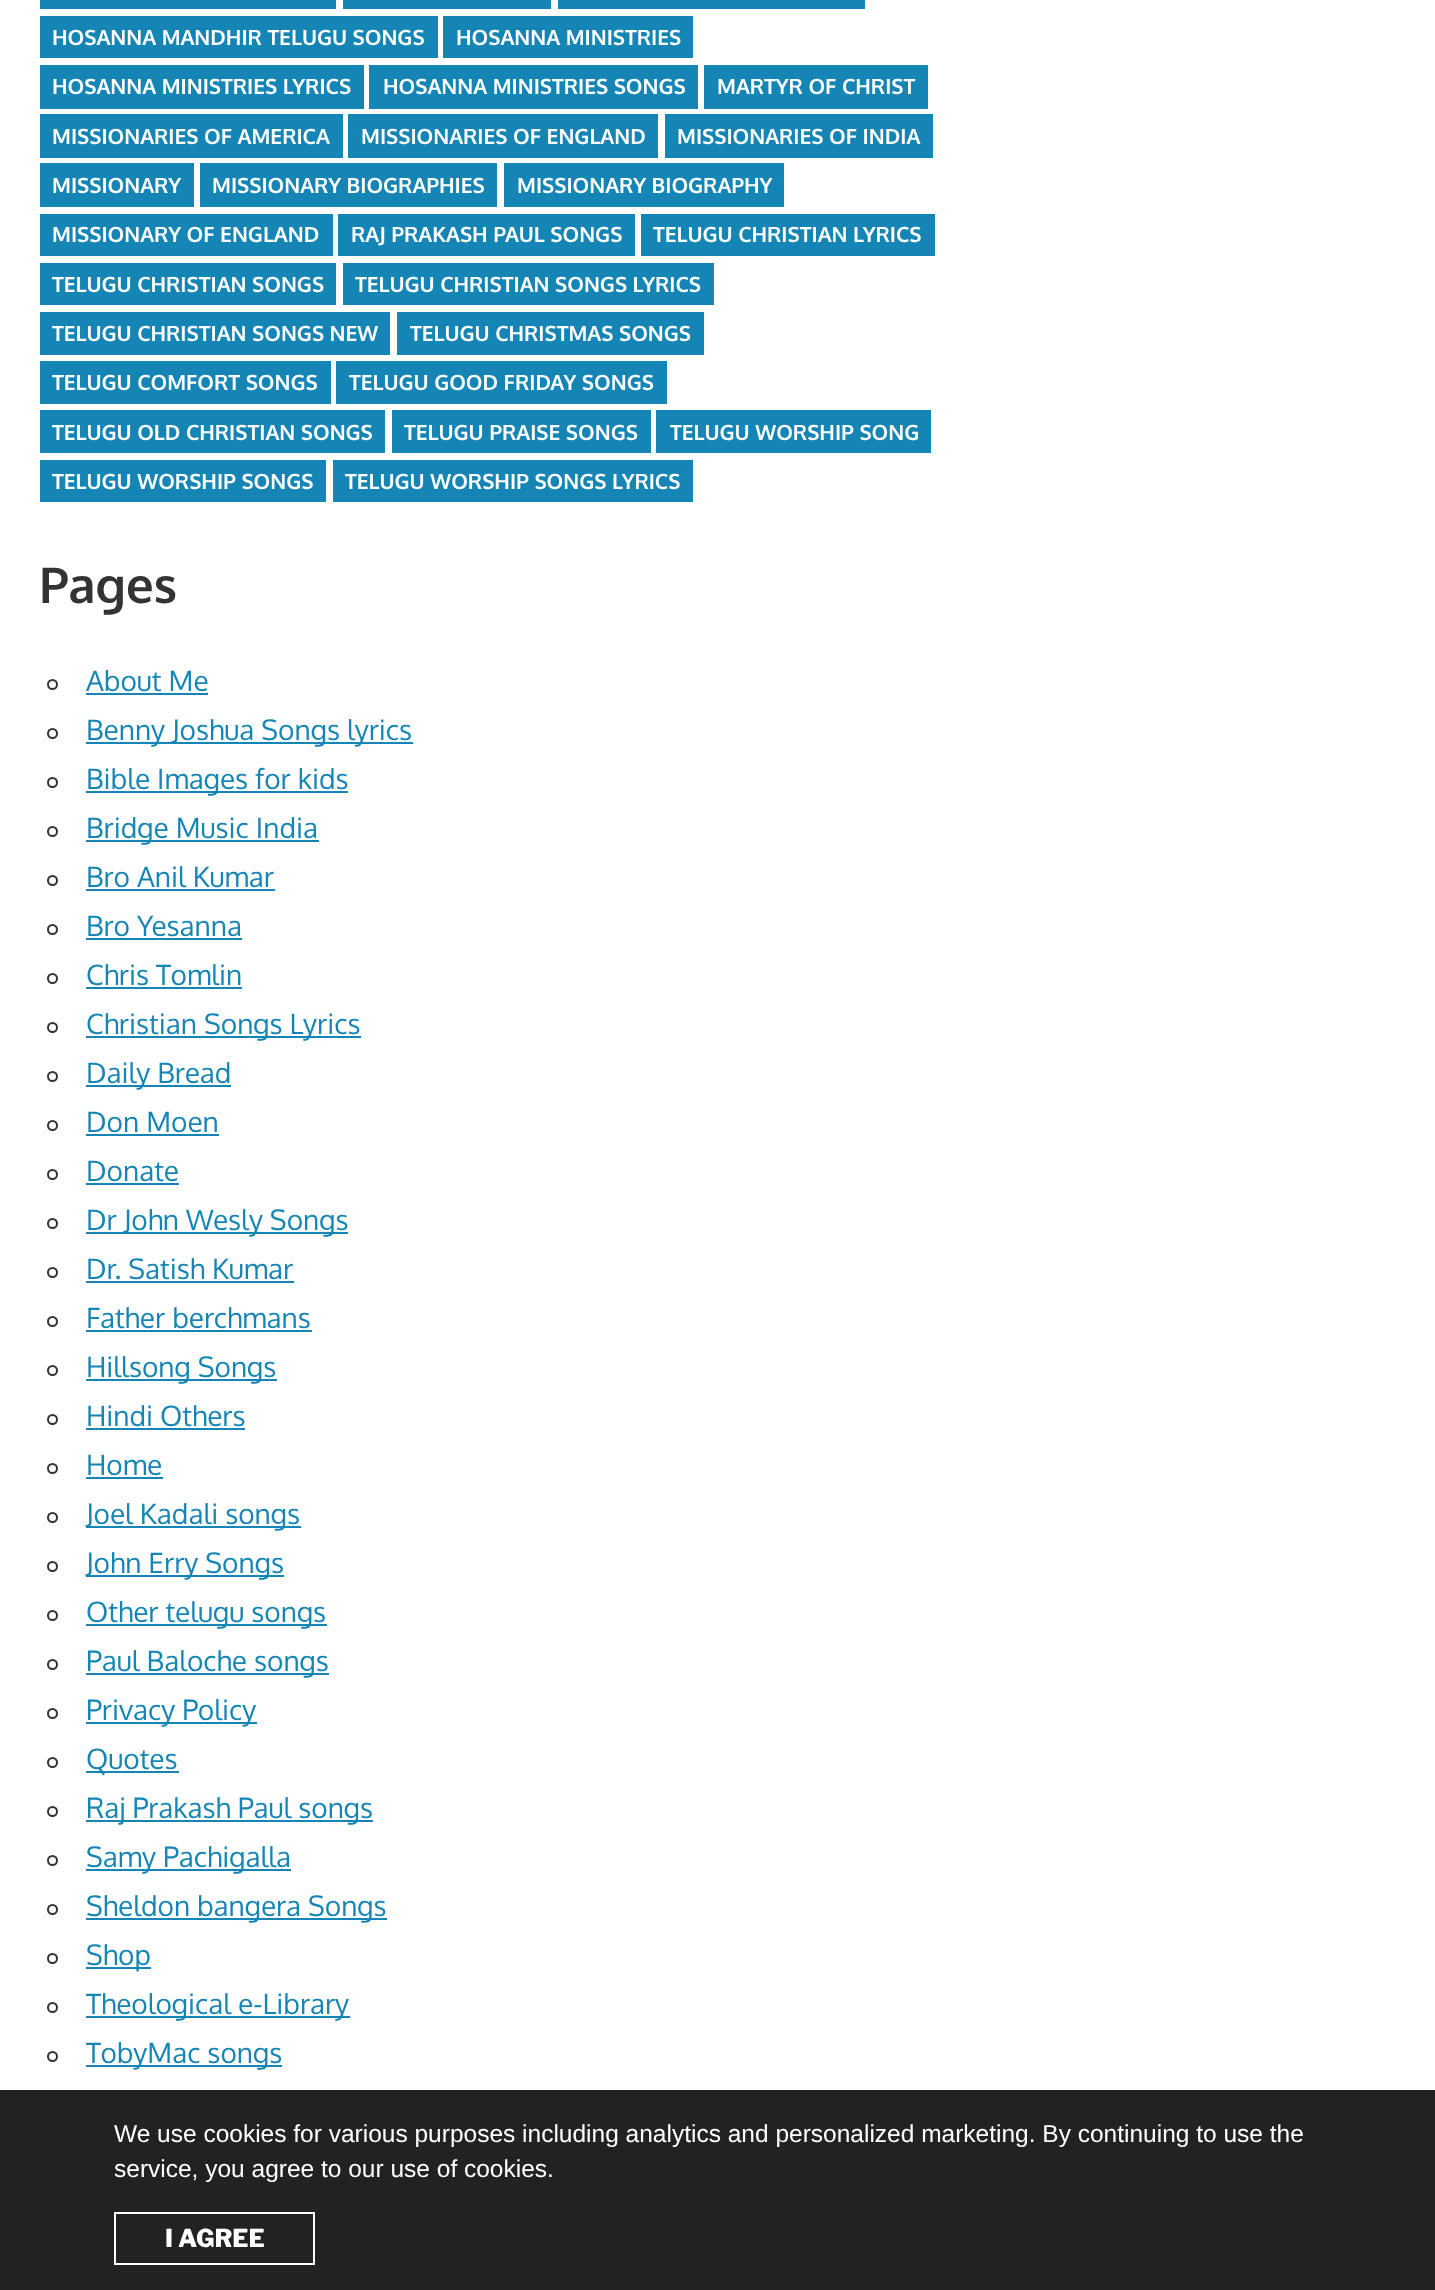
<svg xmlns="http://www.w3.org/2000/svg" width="1435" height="2290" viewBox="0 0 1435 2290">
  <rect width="100%" height="100%" fill="rgb(255,255,255)"/>
  <rect x="40" y="0" width="296" height="9" fill="rgb(21,133,181)"/>
  <rect x="343" y="0" width="208" height="9" fill="rgb(21,133,181)"/>
  <rect x="558" y="0" width="307" height="9" fill="rgb(21,133,181)"/>
  <rect x="40" y="16" width="398" height="42" fill="rgb(21,133,181)"/>
  <text x="52" y="45" font-family="Oxygen" font-size="21" font-weight="bold" fill="rgb(255,255,255)">HOSANNA MANDHIR TELUGU SONGS</text>
  <rect x="443" y="16" width="250" height="42" fill="rgb(21,133,181)"/>
  <text x="456" y="45" font-family="Oxygen" font-size="21" font-weight="bold" fill="rgb(255,255,255)">HOSANNA MINISTRIES</text>
  <rect x="40" y="65" width="324" height="44" fill="rgb(21,133,181)"/>
  <text x="52" y="94" font-family="Oxygen" font-size="21" font-weight="bold" fill="rgb(255,255,255)">HOSANNA MINISTRIES LYRICS</text>
  <rect x="369" y="65" width="329" height="44" fill="rgb(21,133,181)"/>
  <text x="383" y="94" font-family="Oxygen" font-size="21" font-weight="bold" fill="rgb(255,255,255)">HOSANNA MINISTRIES SONGS</text>
  <rect x="704" y="65" width="224" height="44" fill="rgb(21,133,181)"/>
  <text x="717" y="94" font-family="Oxygen" font-size="21" font-weight="bold" fill="rgb(255,255,255)">MARTYR OF CHRIST</text>
  <rect x="40" y="114" width="303" height="44" fill="rgb(21,133,181)"/>
  <text x="52" y="144" font-family="Oxygen" font-size="21" font-weight="bold" fill="rgb(255,255,255)">MISSIONARIES OF AMERICA</text>
  <rect x="348" y="114" width="310" height="44" fill="rgb(21,133,181)"/>
  <text x="361" y="144" font-family="Oxygen" font-size="21" font-weight="bold" fill="rgb(255,255,255)">MISSIONARIES OF ENGLAND</text>
  <rect x="665" y="114" width="268" height="44" fill="rgb(21,133,181)"/>
  <text x="677" y="144" font-family="Oxygen" font-size="21" font-weight="bold" fill="rgb(255,255,255)">MISSIONARIES OF INDIA</text>
  <rect x="40" y="163" width="154" height="44" fill="rgb(21,133,181)"/>
  <text x="52" y="193" font-family="Oxygen" font-size="21" font-weight="bold" fill="rgb(255,255,255)">MISSIONARY</text>
  <rect x="200" y="163" width="297" height="44" fill="rgb(21,133,181)"/>
  <text x="212" y="193" font-family="Oxygen" font-size="21" font-weight="bold" fill="rgb(255,255,255)">MISSIONARY BIOGRAPHIES</text>
  <rect x="504" y="163" width="280" height="44" fill="rgb(21,133,181)"/>
  <text x="517" y="193" font-family="Oxygen" font-size="21" font-weight="bold" fill="rgb(255,255,255)">MISSIONARY BIOGRAPHY</text>
  <rect x="40" y="214" width="293" height="42" fill="rgb(21,133,181)"/>
  <text x="52" y="242" font-family="Oxygen" font-size="21" font-weight="bold" fill="rgb(255,255,255)">MISSIONARY OF ENGLAND</text>
  <rect x="338" y="214" width="297" height="42" fill="rgb(21,133,181)"/>
  <text x="351" y="242" font-family="Oxygen" font-size="21" font-weight="bold" fill="rgb(255,255,255)">RAJ PRAKASH PAUL SONGS</text>
  <rect x="641" y="214" width="294" height="42" fill="rgb(21,133,181)"/>
  <text x="653" y="242" font-family="Oxygen" font-size="21" font-weight="bold" fill="rgb(255,255,255)">TELUGU CHRISTIAN LYRICS</text>
  <rect x="40" y="263" width="296" height="42" fill="rgb(21,133,181)"/>
  <text x="52" y="292" font-family="Oxygen" font-size="21" font-weight="bold" fill="rgb(255,255,255)">TELUGU CHRISTIAN SONGS</text>
  <rect x="343" y="263" width="371" height="42" fill="rgb(21,133,181)"/>
  <text x="355" y="292" font-family="Oxygen" font-size="21" font-weight="bold" fill="rgb(255,255,255)">TELUGU CHRISTIAN SONGS LYRICS</text>
  <rect x="40" y="312" width="350" height="43" fill="rgb(21,133,181)"/>
  <text x="52" y="341" font-family="Oxygen" font-size="21" font-weight="bold" fill="rgb(255,255,255)">TELUGU CHRISTIAN SONGS NEW</text>
  <rect x="397" y="312" width="307" height="43" fill="rgb(21,133,181)"/>
  <text x="410" y="341" font-family="Oxygen" font-size="21" font-weight="bold" fill="rgb(255,255,255)">TELUGU CHRISTMAS SONGS</text>
  <rect x="40" y="361" width="291" height="43" fill="rgb(21,133,181)"/>
  <text x="52" y="390" font-family="Oxygen" font-size="21" font-weight="bold" fill="rgb(255,255,255)">TELUGU COMFORT SONGS</text>
  <rect x="336" y="361" width="331" height="43" fill="rgb(21,133,181)"/>
  <text x="349" y="390" font-family="Oxygen" font-size="21" font-weight="bold" fill="rgb(255,255,255)">TELUGU GOOD FRIDAY SONGS</text>
  <rect x="40" y="410" width="345" height="43" fill="rgb(21,133,181)"/>
  <text x="52" y="440" font-family="Oxygen" font-size="21" font-weight="bold" fill="rgb(255,255,255)">TELUGU OLD CHRISTIAN SONGS</text>
  <rect x="392" y="410" width="259" height="43" fill="rgb(21,133,181)"/>
  <text x="404" y="440" font-family="Oxygen" font-size="21" font-weight="bold" fill="rgb(255,255,255)">TELUGU PRAISE SONGS</text>
  <rect x="656" y="410" width="275" height="43" fill="rgb(21,133,181)"/>
  <text x="670" y="440" font-family="Oxygen" font-size="21" font-weight="bold" fill="rgb(255,255,255)">TELUGU WORSHIP SONG</text>
  <rect x="40" y="460" width="286" height="42" fill="rgb(21,133,181)"/>
  <text x="52" y="489" font-family="Oxygen" font-size="21" font-weight="bold" fill="rgb(255,255,255)">TELUGU WORSHIP SONGS</text>
  <rect x="333" y="460" width="360" height="42" fill="rgb(21,133,181)"/>
  <text x="345" y="489" font-family="Oxygen" font-size="21" font-weight="bold" fill="rgb(255,255,255)">TELUGU WORSHIP SONGS LYRICS</text>
  <text x="39" y="603" font-family="Oxygen" font-size="49" font-weight="bold" fill="rgb(51,51,51)">Pages</text>
  <circle cx="52.5" cy="684.5" r="4.5" fill="none" stroke="rgb(51,51,51)" stroke-width="2"/>
  <text x="86" y="691" font-family="Oxygen" font-size="28" fill="rgb(21,133,181)">About Me</text>
  <rect x="86" y="693" width="122" height="2" fill="rgb(21,133,181)"/>
  <circle cx="52.5" cy="733.5" r="4.5" fill="none" stroke="rgb(51,51,51)" stroke-width="2"/>
  <rect x="86" y="742" width="327" height="2" fill="rgb(21,133,181)"/>
  <text x="86" y="740" font-family="Oxygen" font-size="28" fill="rgb(21,133,181)">Benny Joshua Songs lyrics</text>
  <circle cx="52.5" cy="782.5" r="4.5" fill="none" stroke="rgb(51,51,51)" stroke-width="2"/>
  <rect x="86" y="791" width="262" height="2" fill="rgb(21,133,181)"/>
  <text x="86" y="789" font-family="Oxygen" font-size="28" fill="rgb(21,133,181)">Bible Images for kids</text>
  <circle cx="52.5" cy="831.5" r="4.5" fill="none" stroke="rgb(51,51,51)" stroke-width="2"/>
  <rect x="86" y="840" width="233" height="2" fill="rgb(21,133,181)"/>
  <text x="86" y="838" font-family="Oxygen" font-size="28" fill="rgb(21,133,181)">Bridge Music India</text>
  <circle cx="52.5" cy="880.5" r="4.5" fill="none" stroke="rgb(51,51,51)" stroke-width="2"/>
  <text x="86" y="887" font-family="Oxygen" font-size="28" fill="rgb(21,133,181)">Bro Anil Kumar</text>
  <rect x="86" y="889" width="189" height="2" fill="rgb(21,133,181)"/>
  <circle cx="52.5" cy="929.5" r="4.5" fill="none" stroke="rgb(51,51,51)" stroke-width="2"/>
  <text x="86" y="936" font-family="Oxygen" font-size="28" fill="rgb(21,133,181)">Bro Yesanna</text>
  <rect x="86" y="938" width="156" height="2" fill="rgb(21,133,181)"/>
  <circle cx="52.5" cy="978.5" r="4.5" fill="none" stroke="rgb(51,51,51)" stroke-width="2"/>
  <text x="86" y="985" font-family="Oxygen" font-size="28" fill="rgb(21,133,181)">Chris Tomlin</text>
  <rect x="86" y="987" width="156" height="2" fill="rgb(21,133,181)"/>
  <circle cx="52.5" cy="1027.5" r="4.5" fill="none" stroke="rgb(51,51,51)" stroke-width="2"/>
  <rect x="86" y="1036" width="275" height="2" fill="rgb(21,133,181)"/>
  <text x="86" y="1034" font-family="Oxygen" font-size="28" fill="rgb(21,133,181)">Christian Songs Lyrics</text>
  <circle cx="52.5" cy="1076.5" r="4.5" fill="none" stroke="rgb(51,51,51)" stroke-width="2"/>
  <rect x="86" y="1085" width="145" height="2" fill="rgb(21,133,181)"/>
  <text x="86" y="1083" font-family="Oxygen" font-size="28" fill="rgb(21,133,181)">Daily Bread</text>
  <circle cx="52.5" cy="1125.5" r="4.5" fill="none" stroke="rgb(51,51,51)" stroke-width="2"/>
  <text x="86" y="1132" font-family="Oxygen" font-size="28" fill="rgb(21,133,181)">Don Moen</text>
  <rect x="86" y="1134" width="133" height="2" fill="rgb(21,133,181)"/>
  <circle cx="52.5" cy="1174.5" r="4.5" fill="none" stroke="rgb(51,51,51)" stroke-width="2"/>
  <text x="86" y="1181" font-family="Oxygen" font-size="28" fill="rgb(21,133,181)">Donate</text>
  <rect x="86" y="1183" width="93" height="2" fill="rgb(21,133,181)"/>
  <circle cx="52.5" cy="1223.5" r="4.5" fill="none" stroke="rgb(51,51,51)" stroke-width="2"/>
  <rect x="86" y="1232" width="262" height="2" fill="rgb(21,133,181)"/>
  <text x="86" y="1230" font-family="Oxygen" font-size="28" fill="rgb(21,133,181)">Dr John Wesly Songs</text>
  <circle cx="52.5" cy="1272.5" r="4.5" fill="none" stroke="rgb(51,51,51)" stroke-width="2"/>
  <text x="86" y="1279" font-family="Oxygen" font-size="28" fill="rgb(21,133,181)">Dr. Satish Kumar</text>
  <rect x="86" y="1281" width="208" height="2" fill="rgb(21,133,181)"/>
  <circle cx="52.5" cy="1321.5" r="4.5" fill="none" stroke="rgb(51,51,51)" stroke-width="2"/>
  <text x="86" y="1328" font-family="Oxygen" font-size="28" fill="rgb(21,133,181)">Father berchmans</text>
  <rect x="86" y="1330" width="226" height="2" fill="rgb(21,133,181)"/>
  <circle cx="52.5" cy="1370.5" r="4.5" fill="none" stroke="rgb(51,51,51)" stroke-width="2"/>
  <rect x="86" y="1379" width="191" height="2" fill="rgb(21,133,181)"/>
  <text x="86" y="1377" font-family="Oxygen" font-size="28" fill="rgb(21,133,181)">Hillsong Songs</text>
  <circle cx="52.5" cy="1419.5" r="4.5" fill="none" stroke="rgb(51,51,51)" stroke-width="2"/>
  <text x="86" y="1426" font-family="Oxygen" font-size="28" fill="rgb(21,133,181)">Hindi Others</text>
  <rect x="86" y="1428" width="159" height="2" fill="rgb(21,133,181)"/>
  <circle cx="52.5" cy="1468.5" r="4.5" fill="none" stroke="rgb(51,51,51)" stroke-width="2"/>
  <text x="86" y="1475" font-family="Oxygen" font-size="28" fill="rgb(21,133,181)">Home</text>
  <rect x="86" y="1477" width="77" height="2" fill="rgb(21,133,181)"/>
  <circle cx="52.5" cy="1517.5" r="4.5" fill="none" stroke="rgb(51,51,51)" stroke-width="2"/>
  <rect x="86" y="1526" width="215" height="2" fill="rgb(21,133,181)"/>
  <text x="86" y="1524" font-family="Oxygen" font-size="28" fill="rgb(21,133,181)">Joel Kadali songs</text>
  <circle cx="52.5" cy="1566.5" r="4.5" fill="none" stroke="rgb(51,51,51)" stroke-width="2"/>
  <rect x="86" y="1575" width="198" height="2" fill="rgb(21,133,181)"/>
  <text x="86" y="1573" font-family="Oxygen" font-size="28" fill="rgb(21,133,181)">John Erry Songs</text>
  <circle cx="52.5" cy="1615.5" r="4.5" fill="none" stroke="rgb(51,51,51)" stroke-width="2"/>
  <rect x="86" y="1624" width="241" height="2" fill="rgb(21,133,181)"/>
  <text x="86" y="1622" font-family="Oxygen" font-size="28" fill="rgb(21,133,181)">Other telugu songs</text>
  <circle cx="52.5" cy="1664.5" r="4.5" fill="none" stroke="rgb(51,51,51)" stroke-width="2"/>
  <rect x="86" y="1673" width="243" height="2" fill="rgb(21,133,181)"/>
  <text x="86" y="1671" font-family="Oxygen" font-size="28" fill="rgb(21,133,181)">Paul Baloche songs</text>
  <circle cx="52.5" cy="1713.5" r="4.5" fill="none" stroke="rgb(51,51,51)" stroke-width="2"/>
  <rect x="86" y="1722" width="171" height="2" fill="rgb(21,133,181)"/>
  <text x="86" y="1720" font-family="Oxygen" font-size="28" fill="rgb(21,133,181)">Privacy Policy</text>
  <circle cx="52.5" cy="1762.5" r="4.5" fill="none" stroke="rgb(51,51,51)" stroke-width="2"/>
  <rect x="86" y="1771" width="93" height="2" fill="rgb(21,133,181)"/>
  <text x="86" y="1769" font-family="Oxygen" font-size="28" fill="rgb(21,133,181)">Quotes</text>
  <circle cx="52.5" cy="1811.5" r="4.5" fill="none" stroke="rgb(51,51,51)" stroke-width="2"/>
  <rect x="86" y="1820" width="287" height="2" fill="rgb(21,133,181)"/>
  <text x="86" y="1818" font-family="Oxygen" font-size="28" fill="rgb(21,133,181)">Raj Prakash Paul songs</text>
  <circle cx="52.5" cy="1860.5" r="4.5" fill="none" stroke="rgb(51,51,51)" stroke-width="2"/>
  <rect x="86" y="1869" width="205" height="2" fill="rgb(21,133,181)"/>
  <text x="86" y="1867" font-family="Oxygen" font-size="28" fill="rgb(21,133,181)">Samy Pachigalla</text>
  <circle cx="52.5" cy="1909.5" r="4.5" fill="none" stroke="rgb(51,51,51)" stroke-width="2"/>
  <rect x="86" y="1918" width="301" height="2" fill="rgb(21,133,181)"/>
  <text x="86" y="1916" font-family="Oxygen" font-size="28" fill="rgb(21,133,181)">Sheldon bangera Songs</text>
  <circle cx="52.5" cy="1958.5" r="4.5" fill="none" stroke="rgb(51,51,51)" stroke-width="2"/>
  <rect x="86" y="1967" width="65" height="2" fill="rgb(21,133,181)"/>
  <text x="86" y="1965" font-family="Oxygen" font-size="28" fill="rgb(21,133,181)">Shop</text>
  <circle cx="52.5" cy="2007.5" r="4.5" fill="none" stroke="rgb(51,51,51)" stroke-width="2"/>
  <rect x="86" y="2016" width="264" height="2" fill="rgb(21,133,181)"/>
  <text x="86" y="2014" font-family="Oxygen" font-size="28" fill="rgb(21,133,181)">Theological e-Library</text>
  <circle cx="52.5" cy="2056.5" r="4.5" fill="none" stroke="rgb(51,51,51)" stroke-width="2"/>
  <rect x="86" y="2065" width="196" height="2" fill="rgb(21,133,181)"/>
  <text x="86" y="2063" font-family="Oxygen" font-size="28" fill="rgb(21,133,181)">TobyMac songs</text>
  <rect x="0" y="2090" width="1435" height="200" fill="rgb(34,34,34)"/>
  <g font-family="Liberation Sans" font-size="24.5" fill="rgb(255,255,255)">
    <text>
      <tspan x="114" y="2142">We use cookies for various purposes including analytics and personalized marketing. By continuing to use the</tspan>
      <tspan x="114" y="2177">service, you agree to our use of cookies.</tspan>
    </text>
  </g>
  <rect x="115" y="2213" width="199" height="51" fill="none" stroke="rgb(255,255,255)" stroke-width="2"/>
  <text x="165" y="2247" font-family="Libre Franklin" font-size="24.5" font-weight="800" fill="rgb(255,255,255)">I AGREE</text>
</svg>
